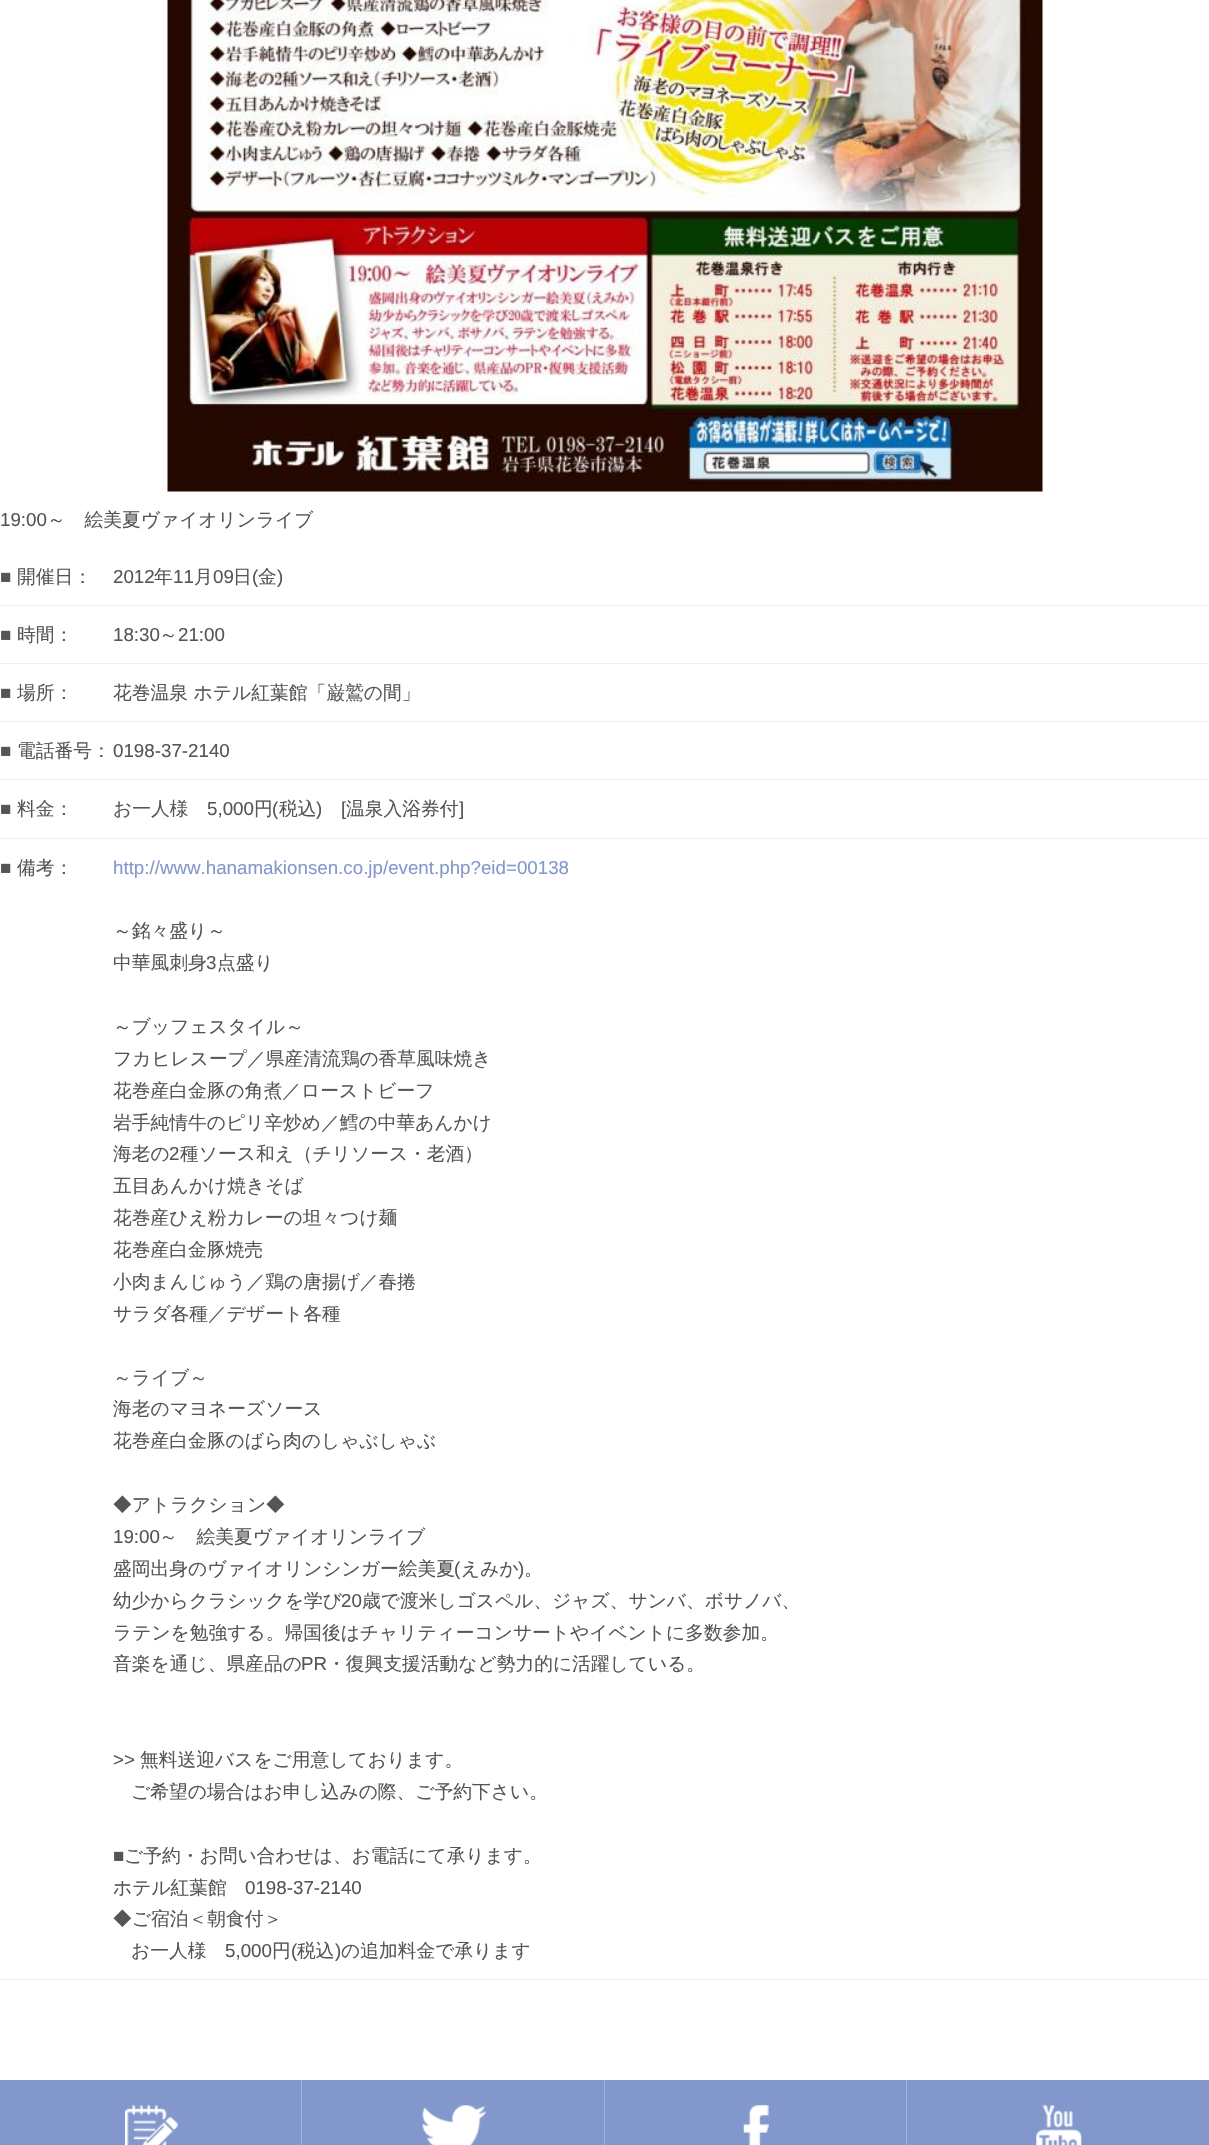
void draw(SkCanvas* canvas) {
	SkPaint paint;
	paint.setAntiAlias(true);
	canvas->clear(0xffffffff);
	canvas->drawImageRect(SkImages::DeferredFromEncodedData(SkData::MakeFromFileName("img1.png")), SkRect::MakeXYWH(167, 0, 876, 492), SkSamplingOptions());
	SkFont f1(fontMgr->matchFamilyStyle("Liberation Sans", SkFontStyle::Normal()), 18.75);
	f1.setSubpixel(true);
	paint.setColor(0xff555555);
	canvas->drawString("19:00", 0, 526, f1, paint);
	SkFont f2(fontMgr->matchFamilyStyle("WenQuanYi Zen Hei", SkFontStyle(500, SkFontStyle::kNormal_Width, SkFontStyle::kUpright_Slant)), 18.75);
	f2.setSubpixel(true);
	canvas->drawString("～　絵美夏ヴァイオリンライブ", 47, 526, f2, paint);
	canvas->drawString("■", 0, 583, f1, paint);
	canvas->drawString("開催日：", 17, 583, f2, paint);
	paint.setColor(0xfff2eeea);
	canvas->drawRect(SkRect::MakeXYWH(0, 605, 1209, 1), paint);
	paint.setColor(0xff555555);
	canvas->drawString("2012", 113, 583, f1, paint);
	canvas->drawString("年", 154, 583, f2, paint);
	canvas->drawString("11", 173, 583, f1, paint);
	canvas->drawString("月", 194, 583, f2, paint);
	canvas->drawString("09", 213, 583, f1, paint);
	canvas->drawString("日", 233, 583, f2, paint);
	canvas->drawString("(", 252, 583, f1, paint);
	canvas->drawString("金", 258, 583, f2, paint);
	canvas->drawString(")", 277, 583, f1, paint);
	canvas->drawString("■", 0, 641, f1, paint);
	canvas->drawString("時間：", 17, 641, f2, paint);
	paint.setColor(0xfff2eeea);
	canvas->drawRect(SkRect::MakeXYWH(0, 663, 1209, 1), paint);
	paint.setColor(0xff555555);
	canvas->drawString("18:30", 113, 641, f1, paint);
	canvas->drawString("～", 159, 641, f2, paint);
	canvas->drawString("21:00", 178, 641, f1, paint);
	canvas->drawString("■", 0, 699, f1, paint);
	canvas->drawString("場所：", 17, 699, f2, paint);
	paint.setColor(0xfff2eeea);
	canvas->drawRect(SkRect::MakeXYWH(0, 721, 1209, 1), paint);
	paint.setColor(0xff555555);
	canvas->drawString("花巻温泉 ホテル紅葉館「巌鷲の間」", 113, 699, f2, paint);
	canvas->drawString("■", 0, 757, f1, paint);
	canvas->drawString("電話番号：", 17, 757, f2, paint);
	paint.setColor(0xfff2eeea);
	canvas->drawRect(SkRect::MakeXYWH(0, 779, 1209, 1), paint);
	paint.setColor(0xff555555);
	canvas->drawString("0198-37-2140", 113, 757, f1, paint);
	canvas->drawString("■", 0, 815, f1, paint);
	canvas->drawString("料金：", 17, 815, f2, paint);
	paint.setColor(0xfff2eeea);
	canvas->drawRect(SkRect::MakeXYWH(0, 838, 1209, 1), paint);
	paint.setColor(0xff555555);
	canvas->drawString("お一人様", 113, 815, f2, paint);
	canvas->drawString("5,000", 207, 815, f1, paint);
	canvas->drawString("円", 254, 815, f2, paint);
	canvas->drawString("(", 272, 815, f1, paint);
	canvas->drawString("税込", 279, 815, f2, paint);
	canvas->drawString(")", 316, 815, f1, paint);
	canvas->drawString("[", 341, 815, f1, paint);
	canvas->drawString("温泉入浴券付", 346, 815, f2, paint);
	canvas->drawString("]", 459, 815, f1, paint);
	canvas->drawString("■", 0, 874, f1, paint);
	canvas->drawString("備考：", 17, 874, f2, paint);
	paint.setColor(0xfff2eeea);
	canvas->drawRect(SkRect::MakeXYWH(0, 1979, 1209, 1), paint);
	paint.setColor(0xff8298cc);
	canvas->drawString("http://www.hanamakionsen.co.jp/event.php?eid=00138", 113, 874, f1, paint);
	paint.setColor(0xff555555);
	canvas->drawString("～銘々盛り～", 113, 937, f2, paint);
	canvas->drawString("中華風刺身", 113, 969, f2, paint);
	canvas->drawString("3", 206, 969, f1, paint);
	canvas->drawString("点盛り", 217, 969, f2, paint);
	canvas->drawString("～ブッフェスタイル～", 113, 1033, f2, paint);
	canvas->drawString("フカヒレスープ／県産清流鶏の香草風味焼き", 113, 1065, f2, paint);
	canvas->drawString("花巻産白金豚の角煮／ローストビーフ", 113, 1097, f2, paint);
	canvas->drawString("岩手純情牛のピリ辛炒め／鱈の中華あんかけ", 113, 1129, f2, paint);
	canvas->drawString("海老の", 113, 1160, f2, paint);
	canvas->drawString("2", 169, 1160, f1, paint);
	canvas->drawString("種ソース和え（チリソース・老酒）", 180, 1160, f2, paint);
	canvas->drawString("五目あんかけ焼きそば", 113, 1192, f2, paint);
	canvas->drawString("花巻産ひえ粉カレーの坦々つけ麺", 113, 1224, f2, paint);
	canvas->drawString("花巻産白金豚焼売", 113, 1256, f2, paint);
	canvas->drawString("小肉まんじゅう／鶏の唐揚げ／春捲", 113, 1288, f2, paint);
	canvas->drawString("サラダ各種／デザート各種", 113, 1320, f2, paint);
	canvas->drawString("～ライブ～", 113, 1384, f2, paint);
	canvas->drawString("海老のマヨネーズソース", 113, 1415, f2, paint);
	canvas->drawString("花巻産白金豚のばら肉のしゃぶしゃぶ", 113, 1447, f2, paint);
	canvas->drawString("◆アトラクション◆", 113, 1511, f2, paint);
	canvas->drawString("19:00", 113, 1543, f1, paint);
	canvas->drawString("～　絵美夏ヴァイオリンライブ", 159, 1543, f2, paint);
	canvas->drawString("盛岡出身のヴァイオリンシンガー絵美夏", 113, 1575, f2, paint);
	canvas->drawString("(", 454, 1575, f1, paint);
	canvas->drawString("えみか", 461, 1575, f2, paint);
	canvas->drawString(")", 518, 1575, f1, paint);
	canvas->drawString("。", 524, 1575, f2, paint);
	canvas->drawString("幼少からクラシックを学び", 113, 1607, f2, paint);
	canvas->drawString("20", 341, 1607, f1, paint);
	canvas->drawString("歳で渡米しゴスペル、ジャズ、サンバ、ボサノバ、", 362, 1607, f2, paint);
	canvas->drawString("ラテンを勉強する。帰国後はチャリティーコンサートやイベントに多数参加。", 113, 1639, f2, paint);
	canvas->drawString("音楽を通じ、県産品の", 113, 1670, f2, paint);
	canvas->drawString("PR", 301, 1670, f1, paint);
	canvas->drawString("・復興支援活動など勢力的に活躍している。", 327, 1670, f2, paint);
	canvas->drawString(">>", 113, 1766, f1, paint);
	canvas->drawString("無料送迎バスをご用意しております。", 140, 1766, f2, paint);
	canvas->drawString("ご希望の場合はお申し込みの際、ご予約下さい。", 131, 1798, f2, paint);
	canvas->drawString("■", 113, 1862, f1, paint);
	canvas->drawString("ご予約・お問い合わせは、お電話にて承ります。", 124, 1862, f2, paint);
	canvas->drawString("ホテル紅葉館", 113, 1894, f2, paint);
	canvas->drawString("0198-37-2140", 245, 1894, f1, paint);
	canvas->drawString("◆ご宿泊＜朝食付＞", 113, 1925, f2, paint);
	canvas->drawString("お一人様", 131, 1957, f2, paint);
	canvas->drawString("5,000", 225, 1957, f1, paint);
	canvas->drawString("円", 272, 1957, f2, paint);
	canvas->drawString("(", 291, 1957, f1, paint);
	canvas->drawString("税込", 297, 1957, f2, paint);
	canvas->drawString(")", 335, 1957, f1, paint);
	canvas->drawString("の追加料金で承ります", 341, 1957, f2, paint);
	paint.setColor(0xff8298cc);
	canvas->drawRect(SkRect::MakeXYWH(0, 2080, 1209, 65), paint);
	paint.setColor(0xff9ab4f0);
	canvas->drawRect(SkRect::MakeXYWH(301, 2080, 1, 65), paint);
	canvas->drawImageRect(SkImages::DeferredFromEncodedData(SkData::MakeFromFileName("img2.png")), SkRect::MakeXYWH(125, 2105, 53, 40), SkSamplingOptions());
	canvas->drawRect(SkRect::MakeXYWH(604, 2080, 1, 65), paint);
	canvas->drawImageRect(SkImages::DeferredFromEncodedData(SkData::MakeFromFileName("img3.png")), SkRect::MakeXYWH(422, 2105, 65, 40), SkSamplingOptions());
	canvas->drawRect(SkRect::MakeXYWH(906, 2080, 1, 65), paint);
	canvas->drawImageRect(SkImages::DeferredFromEncodedData(SkData::MakeFromFileName("img4.png")), SkRect::MakeXYWH(743, 2105, 26, 40), SkSamplingOptions());
	canvas->drawImageRect(SkImages::DeferredFromEncodedData(SkData::MakeFromFileName("img5.png")), SkRect::MakeXYWH(1036, 2105, 46, 40), SkSamplingOptions());
}
